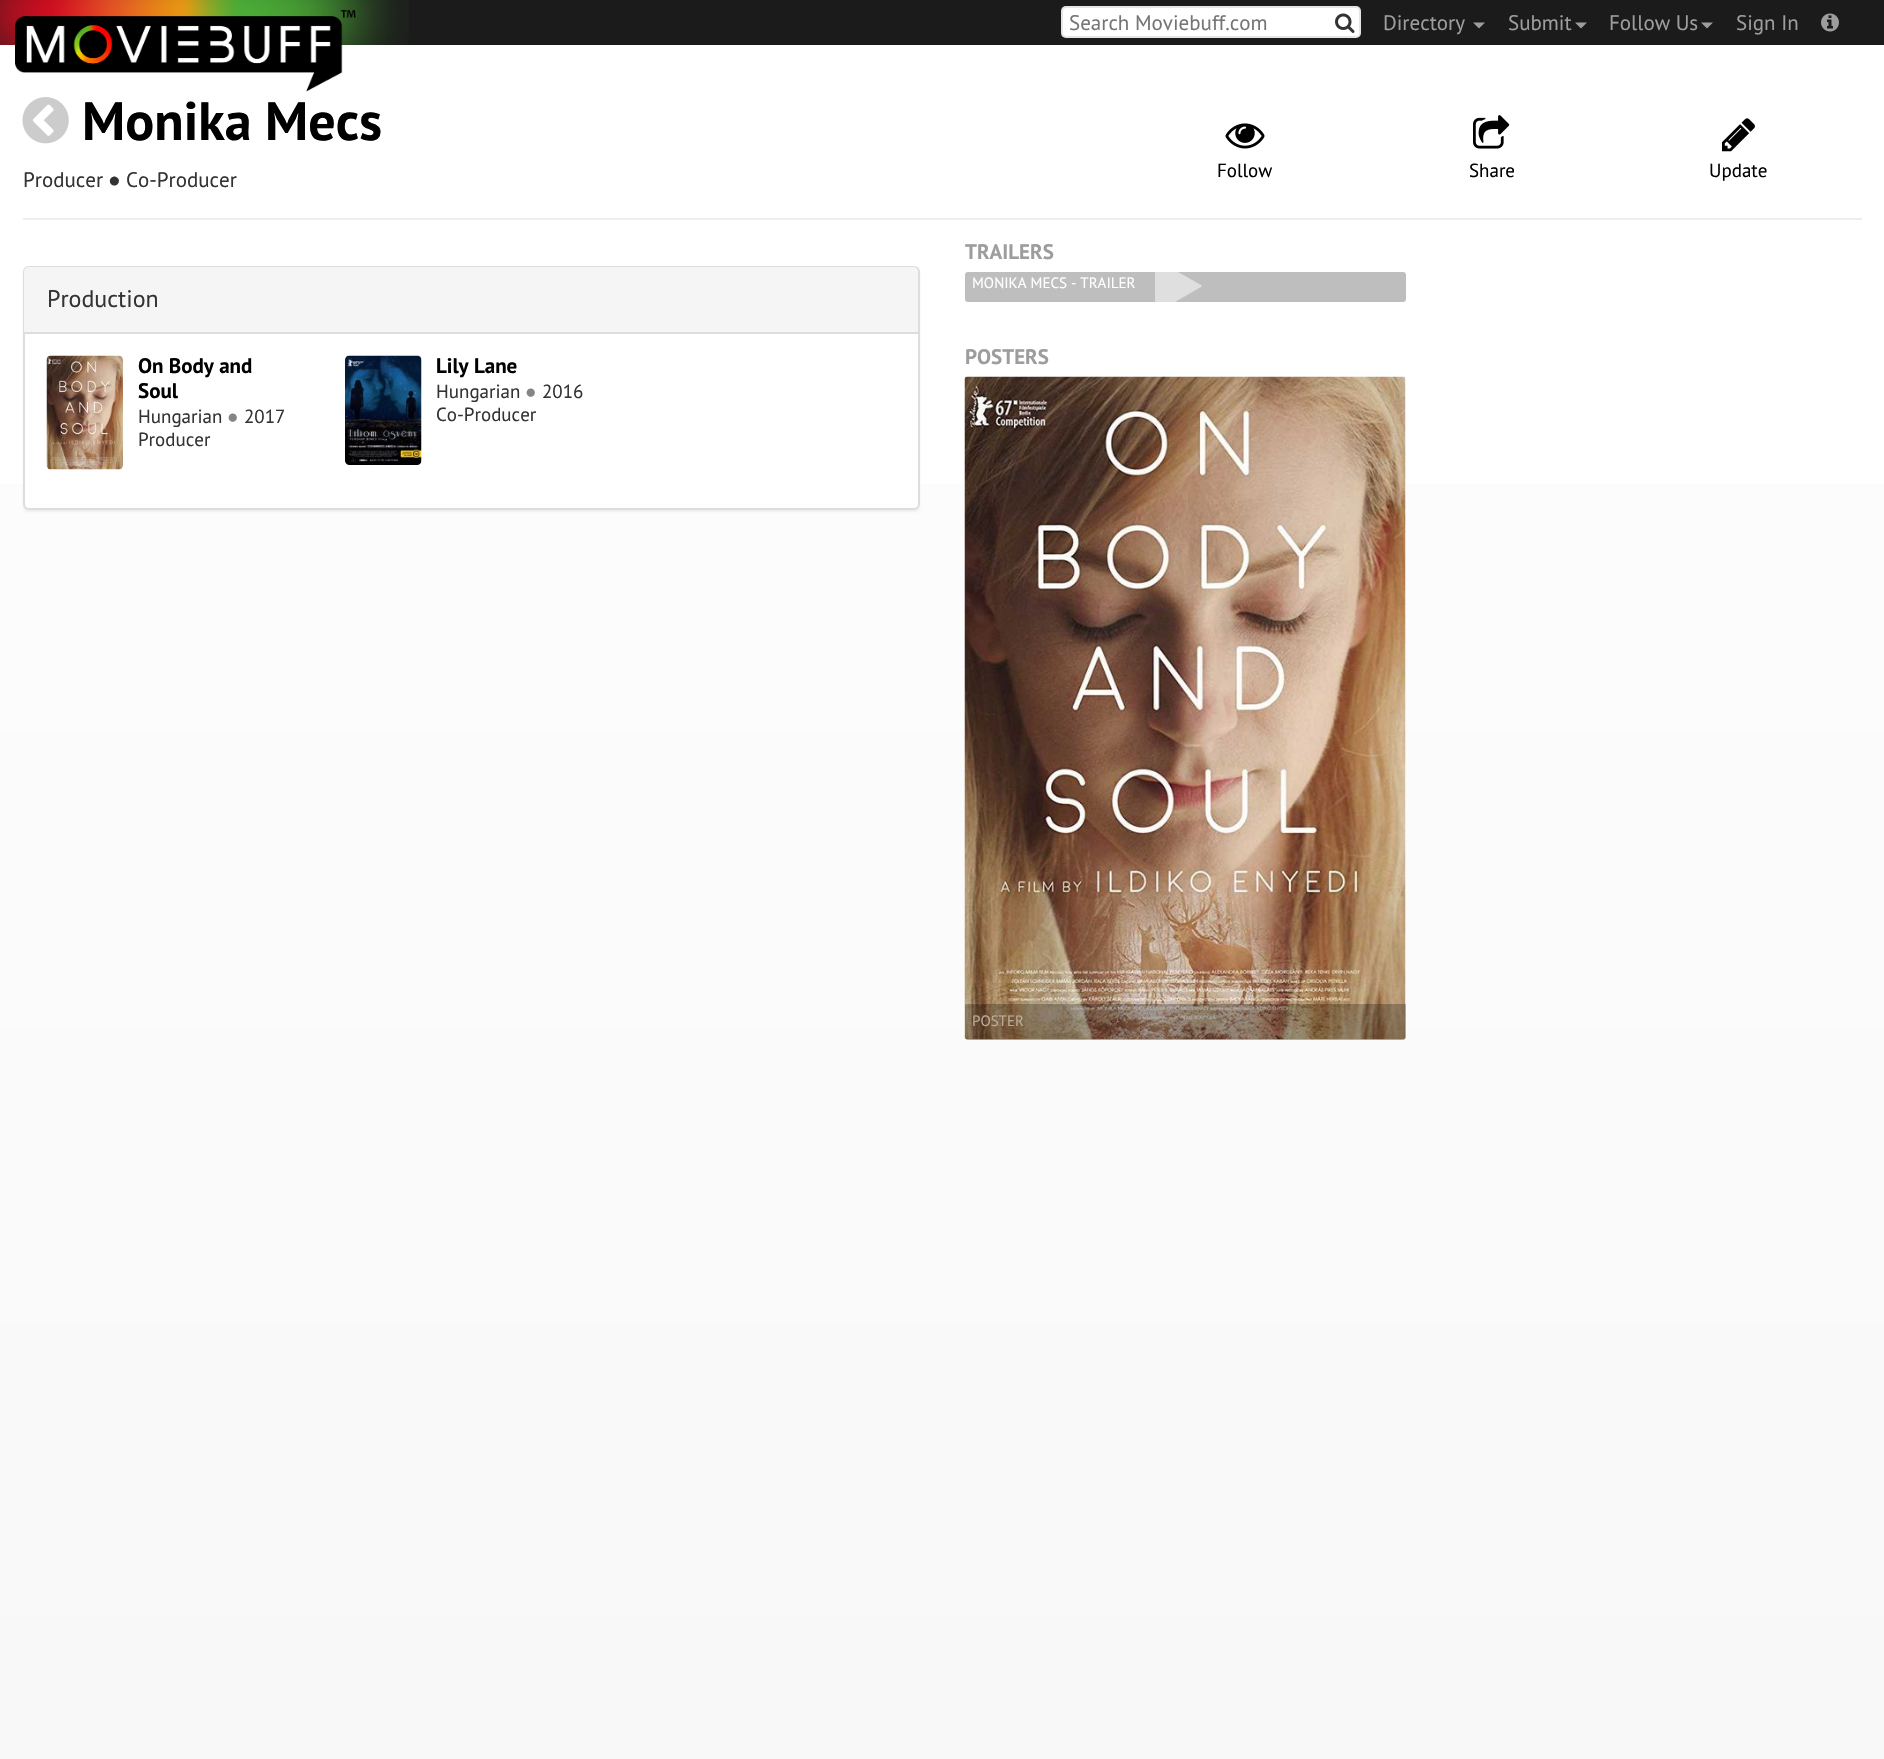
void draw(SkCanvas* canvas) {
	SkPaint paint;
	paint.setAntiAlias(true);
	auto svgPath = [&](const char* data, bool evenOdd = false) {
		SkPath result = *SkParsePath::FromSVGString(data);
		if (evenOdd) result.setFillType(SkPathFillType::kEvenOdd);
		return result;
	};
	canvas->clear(0xffffffff);
	{
		const SkColor colors[] = {0xffffffff, 0xfffcfcfc, 0xfffafafa, 0xfff8f8f8};
		const float stops[] = {0, 0.33, 0.67, 1};
		const SkPoint ends[] = {{942, 0}, {942, 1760}};
		paint.setShader(SkGradientShader::MakeLinear(ends, colors, stops, 4, SkTileMode::kClamp));
		paint.setAlpha(255);
	}
	canvas->drawRect(SkRect::MakeXYWH(0, 484, 1884, 1275), paint);
	paint.setShader(nullptr);
	paint.setColor(0xff1b1b1b);
	canvas->drawRect(SkRect::MakeXYWH(0, 0, 1884, 45), paint);
	canvas->drawImageRect(SkImages::DeferredFromEncodedData(SkData::MakeFromFileName("img1.png")), SkRect::MakeXYWH(0, 0, 409, 45), SkSamplingOptions());
	canvas->drawImageRect(SkImages::DeferredFromEncodedData(SkData::MakeFromFileName("img2.png")), SkRect::MakeXYWH(15, 10, 341, 82), SkSamplingOptions());
	paint.setColor(0xffffffff);
	canvas->drawRoundRect(SkRect::MakeXYWH(1061, 6, 300, 32), 5, 5, paint);
	paint.setStroke(true);
	paint.setStrokeWidth(2);
	paint.setColor(0x1a000000);
	canvas->drawRoundRect(SkRect::MakeXYWH(1062, 7, 298, 30), 4, 4, paint);
	SkFont f1(fontMgr->matchFamilyStyle("PT Sans", SkFontStyle::Normal()), 21);
	f1.setSubpixel(true);
	paint.setStroke(false);
	paint.setColor(0xff757575);
	canvas->drawString("Search Moviebuff.com", 1069, 30, f1, paint);
	canvas->drawImageRect(SkImages::DeferredFromEncodedData(SkData::MakeFromFileName("img3.png")), SkRect::MakeXYWH(1335, 13, 20, 20), SkSamplingOptions());
	paint.setColor(0xff9d9d9d);
	canvas->drawString("Directory", 1383, 30, f1, paint);
	canvas->drawPath(svgPath("M1473 22.5H1485L1479 28.5Z"), paint);
	canvas->drawString("Submit", 1508, 30, f1, paint);
	canvas->drawPath(svgPath("M1575 22.5H1587L1581 28.5Z"), paint);
	canvas->drawString("Follow Us", 1609, 30, f1, paint);
	canvas->drawPath(svgPath("M1701 22.5H1713L1707 28.5Z"), paint);
	canvas->drawString("Sign In", 1736, 30, f1, paint);
	canvas->drawImageRect(SkImages::DeferredFromEncodedData(SkData::MakeFromFileName("img4.png")), SkRect::MakeXYWH(1821, 13, 18, 19), SkSamplingOptions());
	canvas->drawImageRect(SkImages::DeferredFromEncodedData(SkData::MakeFromFileName("img5.png")), SkRect::MakeXYWH(22, 97, 47, 47), SkSamplingOptions());
	SkFont f2(fontMgr->matchFamilyStyle("PT Sans", SkFontStyle::Bold()), 54);
	f2.setSubpixel(true);
	paint.setColor(0xff000000);
	canvas->drawString("Monika Mecs", 82, 140, f2, paint);
	paint.setColor(0xff333333);
	canvas->drawString("Producer", 23, 187, f1, paint);
	SkFont f3(fontMgr->matchFamilyStyle("Liberation Serif", SkFontStyle::Normal()), 21);
	f3.setSubpixel(true);
	canvas->drawString("●", 108, 187, f3, paint);
	canvas->drawString("Co-Producer", 126, 187, f1, paint);
	canvas->drawImageRect(SkImages::DeferredFromEncodedData(SkData::MakeFromFileName("img6.png")), SkRect::MakeXYWH(1225, 123, 40, 26), SkSamplingOptions());
	SkFont f4(fontMgr->matchFamilyStyle("PT Sans", SkFontStyle::Normal()), 19);
	f4.setSubpixel(true);
	paint.setColor(0xff000000);
	canvas->drawString("Follow", 1217, 177, f4, paint);
	canvas->drawImageRect(SkImages::DeferredFromEncodedData(SkData::MakeFromFileName("img7.png")), SkRect::MakeXYWH(1473, 115, 37, 34), SkSamplingOptions());
	canvas->drawString("Share", 1469, 177, f4, paint);
	canvas->drawImageRect(SkImages::DeferredFromEncodedData(SkData::MakeFromFileName("img8.png")), SkRect::MakeXYWH(1722, 118, 33, 34), SkSamplingOptions());
	canvas->drawString("Update", 1709, 177, f4, paint);
	paint.setColor(0xffeeeeee);
	canvas->drawRect(SkRect::MakeXYWH(23, 218, 1839, 2), paint);
	paint.setColor(0x0d000000);
	paint.setMaskFilter(SkMaskFilter::MakeBlur(kNormal_SkBlurStyle, 1));
	canvas->drawRoundRect(SkRect::MakeXYWH(23, 267, 897, 245), 6, 6, paint);
	paint.setMaskFilter(nullptr);
	paint.setColor(0xffffffff);
	canvas->drawRoundRect(SkRect::MakeXYWH(24, 267, 895, 242), 5, 5, paint);
	paint.setStroke(true);
	paint.setColor(0xffdddddd);
	canvas->drawRoundRect(SkRect::MakeXYWH(24, 267, 895, 242), 5, 5, paint);
	paint.setStroke(false);
	paint.setColor(0xfff5f5f5);
	canvas->drawPath(svgPath("M29 267H913C916 267 918 269 918 272V333H24V272C24 269 26 267 29 267Z"), paint);
	paint.setColor(0xffdddddd);
	canvas->drawRect(SkRect::MakeXYWH(24, 332, 894, 2), paint);
	SkFont f5(fontMgr->matchFamilyStyle("PT Sans", SkFontStyle::Normal()), 24);
	f5.setSubpixel(true);
	paint.setColor(0xff333333);
	canvas->drawString("Production", 47, 307, f5, paint);
	canvas->drawImageRect(SkImages::DeferredFromEncodedData(SkData::MakeFromFileName("img9.png")), SkRect::MakeXYWH(46, 355, 77, 115), SkSamplingOptions());
	SkFont f6(fontMgr->matchFamilyStyle("PT Sans", SkFontStyle::Bold()), 21);
	f6.setSubpixel(true);
	paint.setColor(0xff000000);
	canvas->drawString("On Body and", 138, 373, f6, paint);
	canvas->drawString("Soul", 138, 398, f6, paint);
	paint.setColor(0xff333333);
	canvas->drawString("Hungarian", 138, 423, f4, paint);
	SkFont f7(fontMgr->matchFamilyStyle("Liberation Serif", SkFontStyle::Normal()), 19);
	f7.setSubpixel(true);
	paint.setColor(0xff858585);
	canvas->drawString("●", 227, 423, f7, paint);
	paint.setColor(0xff333333);
	canvas->drawString("2017", 244, 423, f4, paint);
	canvas->drawString("Producer", 138, 446, f4, paint);
	canvas->drawImageRect(SkImages::DeferredFromEncodedData(SkData::MakeFromFileName("img10.png")), SkRect::MakeXYWH(345, 355, 77, 110), SkSamplingOptions());
	paint.setColor(0xff000000);
	canvas->drawString("Lily Lane", 436, 373, f6, paint);
	paint.setColor(0xff333333);
	canvas->drawString("Hungarian", 436, 398, f4, paint);
	paint.setColor(0xff858585);
	canvas->drawString("●", 525, 398, f7, paint);
	paint.setColor(0xff333333);
	canvas->drawString("2016", 542, 398, f4, paint);
	canvas->drawString("Co-Producer", 436, 421, f4, paint);
	paint.setColor(0xff9d9d9d);
	canvas->drawString("TRAILERS", 965, 259, f6, paint);
	paint.setColor(0xffbebebe);
	canvas->drawRoundRect(SkRect::MakeXYWH(965, 272, 441, 30), 3, 3, paint);
	SkFont f8(fontMgr->matchFamilyStyle("PT Sans", SkFontStyle::Normal()), 15);
	f8.setSubpixel(true);
	paint.setColor(0xffffffff);
	canvas->drawString("MONIKA MECS - TRAILER", 972, 288, f8, paint);
	paint.setColor(0xffdfdfdf);
	canvas->drawPath(svgPath("M1201 287L1175 302H1155V272H1178L1201 285C1202 286 1202 287 1201 287Z"), paint);
	paint.setColor(0xff9d9d9d);
	canvas->drawString("POSTERS", 965, 364, f6, paint);
	canvas->drawImageRect(SkImages::DeferredFromEncodedData(SkData::MakeFromFileName("img11.png")), SkRect::MakeXYWH(964, 376, 442, 664), SkSamplingOptions());
	paint.setColor(0x40000000);
	canvas->drawPath(svgPath("M965 1004H1406V1037C1406 1038.5 1404.5 1040 1403 1040H968C966.5 1040 965 1038.5 965 1037Z"), paint);
	paint.setColor(0xffb9ab9d);
	canvas->drawString("POSTER", 972, 1026, f8, paint);
}
